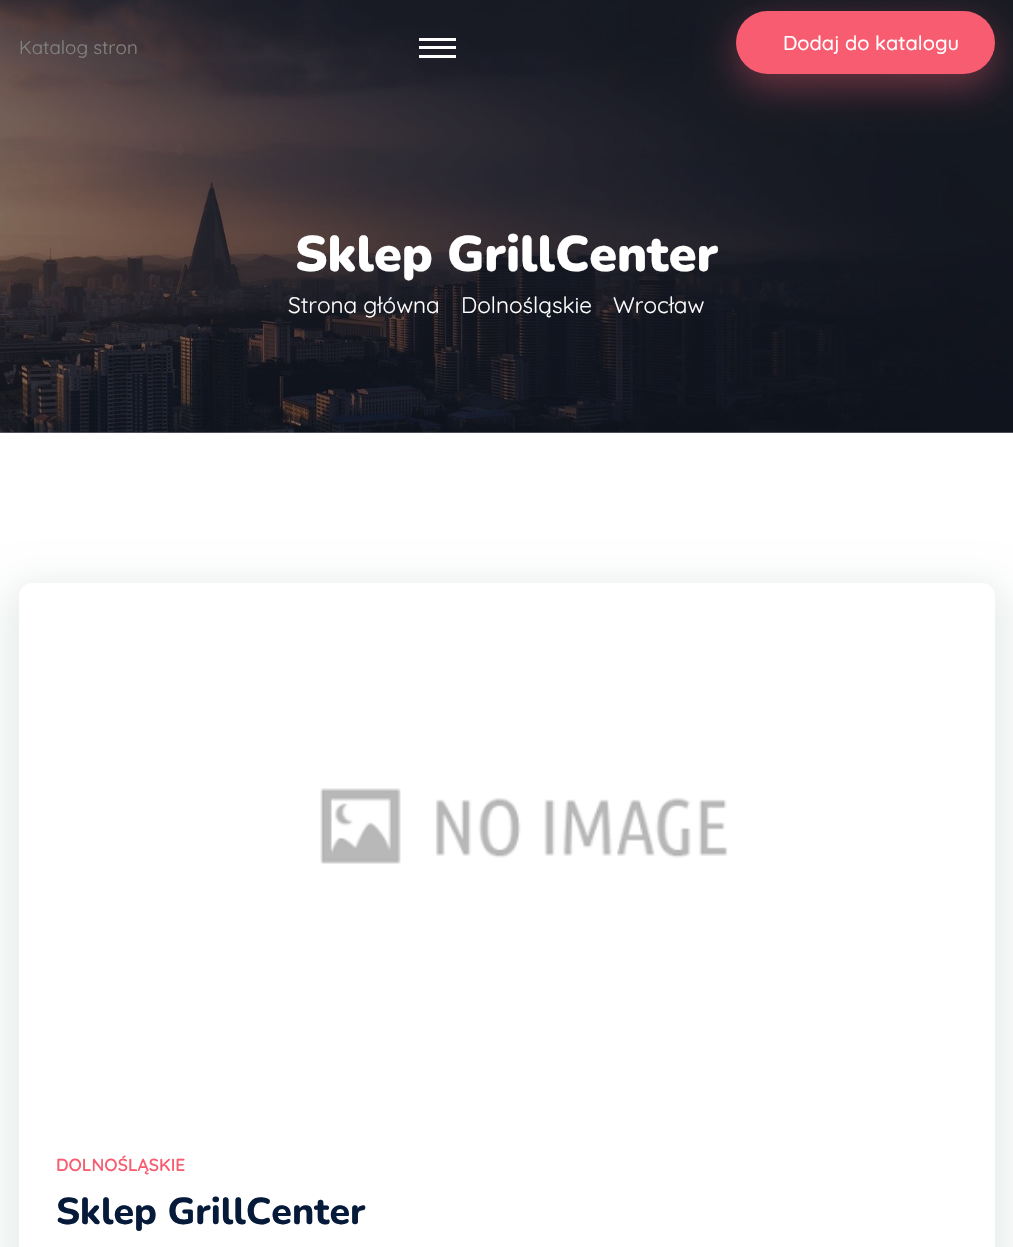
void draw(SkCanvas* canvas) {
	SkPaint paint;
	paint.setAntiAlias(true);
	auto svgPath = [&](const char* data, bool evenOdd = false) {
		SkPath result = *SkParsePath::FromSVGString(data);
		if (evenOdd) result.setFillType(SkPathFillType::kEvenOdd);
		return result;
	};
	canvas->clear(0xffffffff);
	paint.setColor(0xff868b96);
	canvas->drawRect(SkRect::MakeXYWH(0, 432, 1013, 1), paint);
	canvas->drawImageRect(SkImages::DeferredFromEncodedData(SkData::MakeFromFileName("img1.png")), SkRect::MakeXYWH(0, 0, 1013, 433), SkSamplingOptions());
	SkFont f1(fontMgr->matchFamilyStyle("Quicksand", SkFontStyle::Normal()), 18.75);
	f1.setSubpixel(true);
	paint.setColor(0xff848484);
	canvas->drawString("Katalog stron", 19, 54, f1, paint);
	paint.setColor(0xffffffff);
	canvas->drawRect(SkRect::MakeXYWH(419, 38, 37, 3), paint);
	canvas->drawRect(SkRect::MakeXYWH(419, 46, 37, 3), paint);
	canvas->drawRect(SkRect::MakeXYWH(419, 55, 37, 3), paint);
	paint.setColor(0x66f85c70);
	paint.setMaskFilter(SkMaskFilter::MakeBlur(kNormal_SkBlurStyle, 19));
	canvas->drawRoundRect(SkRect::MakeXYWH(736, 24, 259, 62), 31, 31, paint);
	paint.setMaskFilter(nullptr);
	paint.setColor(0xfff85c70);
	canvas->drawRoundRect(SkRect::MakeXYWH(736, 11, 259, 63), 31.5, 31.5, paint);
	SkFont f2(fontMgr->matchFamilyStyle("Quicksand", SkFontStyle(500, SkFontStyle::kNormal_Width, SkFontStyle::kUpright_Slant)), 20);
	f2.setSubpixel(true);
	paint.setColor(0xffffffff);
	canvas->drawString("Dodaj do katalogu", 783, 50, f2, paint);
	SkFont f3(fontMgr->matchFamilyStyle("Nunito", SkFontStyle(900, SkFontStyle::kNormal_Width, SkFontStyle::kUpright_Slant)), 50);
	f3.setSubpixel(true);
	canvas->drawString("Sklep GrillCenter", 295, 271, f3, paint);
	SkFont f4(fontMgr->matchFamilyStyle("Quicksand", SkFontStyle::Normal()), 22.5);
	f4.setSubpixel(true);
	canvas->drawString("Strona główna", 288, 313, f4, paint);
	canvas->drawString("Dolnośląskie", 461, 313, f4, paint);
	canvas->drawString("Wrocław", 613, 313, f4, paint);
	canvas->save();
	canvas->clipPath(svgPath("M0 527H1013V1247H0ZM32 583H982C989 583 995 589 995 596V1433C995 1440 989 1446 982 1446H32C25 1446 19 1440 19 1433V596C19 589 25 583 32 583Z", true), true);
	paint.setColor(0xffe5ebea);
	paint.setMaskFilter(SkMaskFilter::MakeBlur(kNormal_SkBlurStyle, 19));
	canvas->drawRoundRect(SkRect::MakeXYWH(9, 585, 996, 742), 23, 23, paint);
	paint.setMaskFilter(nullptr);
	canvas->restore();
	canvas->drawImageRect(SkImages::DeferredFromEncodedData(SkData::MakeFromFileName("img2.png")), SkRect::MakeXYWH(320, 788, 408, 76), SkSamplingOptions());
	SkFont f5(fontMgr->matchFamilyStyle("Quicksand", SkFontStyle(600, SkFontStyle::kNormal_Width, SkFontStyle::kUpright_Slant)), 17.5);
	f5.setSubpixel(true);
	paint.setColor(0xfff85c70);
	canvas->drawString("DOLNOŚLĄSKIE", 56, 1171, f5, paint);
	SkFont f6(fontMgr->matchFamilyStyle("Nunito", SkFontStyle(800, SkFontStyle::kNormal_Width, SkFontStyle::kUpright_Slant)), 37.5);
	f6.setSubpixel(true);
	paint.setColor(0xff061a3a);
	canvas->drawString("Sklep GrillCenter", 56, 1224, f6, paint);
}
